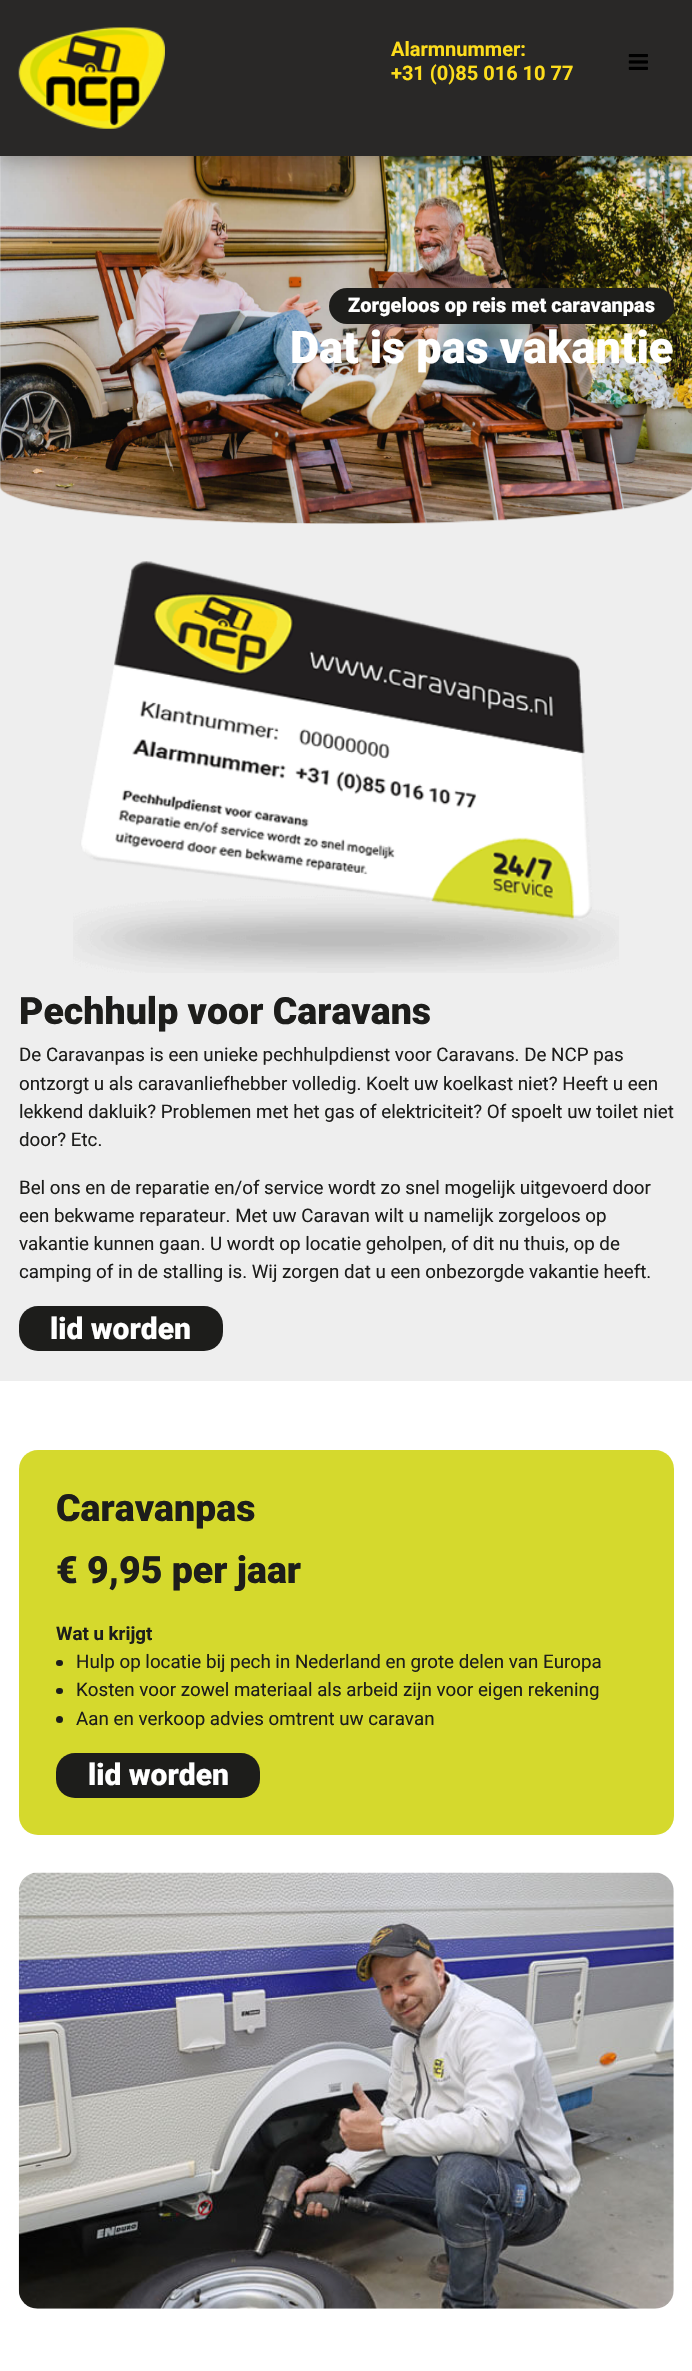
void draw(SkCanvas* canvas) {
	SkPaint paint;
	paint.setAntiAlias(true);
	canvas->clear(0xffffffff);
	paint.setColor(0xffeeeeee);
	canvas->drawRect(SkRect::MakeXYWH(0, 156, 692, 1225), paint);
	canvas->drawImageRect(SkImages::DeferredFromEncodedData(SkData::MakeFromFileName("img3.png")), SkRect::MakeXYWH(0, 156, 692, 368), SkSamplingOptions());
	paint.setColor(0x52000000);
	paint.setMaskFilter(SkMaskFilter::MakeBlur(kNormal_SkBlurStyle, 11));
	canvas->drawRect(SkRect::MakeXYWH(-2, -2, 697, 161), paint);
	paint.setMaskFilter(nullptr);
	paint.setColor(0xff292827);
	canvas->drawRect(SkRect::MakeXYWH(0, 0, 692, 156), paint);
	canvas->drawImageRect(SkImages::DeferredFromEncodedData(SkData::MakeFromFileName("img1.png")), SkRect::MakeXYWH(18, 27, 147, 102), SkSamplingOptions());
	SkFont f1(fontMgr->matchFamilyStyle("Roboto", SkFontStyle::Bold()), 20);
	f1.setSubpixel(true);
	paint.setColor(0xfffcdc1c);
	canvas->drawString("Alarmnummer:", 391, 56, f1, paint);
	canvas->drawString("+31 (0)85 016 10 77", 391, 80, f1, paint);
	canvas->drawImageRect(SkImages::DeferredFromEncodedData(SkData::MakeFromFileName("img2.png")), SkRect::MakeXYWH(628, 54, 20, 16), SkSamplingOptions());
	paint.setColor(0xff1d1d1b);
	canvas->drawRoundRect(SkRect::MakeXYWH(329, 288, 345, 36), 18, 18, paint);
	SkFont f2(fontMgr->matchFamilyStyle("Roboto", SkFontStyle(900, SkFontStyle::kNormal_Width, SkFontStyle::kUpright_Slant)), 20);
	f2.setSubpixel(true);
	paint.setColor(0xffffffff);
	canvas->drawString("Zorgeloos op reis met caravanpas", 348, 312, f2, paint);
	SkFont f3(fontMgr->matchFamilyStyle("Roboto", SkFontStyle(900, SkFontStyle::kNormal_Width, SkFontStyle::kUpright_Slant)), 45);
	f3.setSubpixel(true);
	canvas->drawString("Dat is pas vakantie", 290, 363, f3, paint);
	canvas->drawImageRect(SkImages::DeferredFromEncodedData(SkData::MakeFromFileName("img4.png")), SkRect::MakeXYWH(73, 561, 546, 412), SkSamplingOptions());
	SkFont f4(fontMgr->matchFamilyStyle("Roboto", SkFontStyle(900, SkFontStyle::kNormal_Width, SkFontStyle::kUpright_Slant)), 37.5);
	f4.setSubpixel(true);
	paint.setColor(0xff1d1d1b);
	canvas->drawString("Pechhulp voor Caravans", 19, 1024, f4, paint);
	SkFont f5(fontMgr->matchFamilyStyle("Roboto", SkFontStyle::Normal()), 18.75);
	f5.setSubpixel(true);
	canvas->drawString("De Caravanpas is een unieke pechhulpdienst voor Caravans. De NCP pas", 19, 1061, f5, paint);
	canvas->drawString("ontzorgt u als caravanliefhebber volledig. Koelt uw koelkast niet? Heeft u een", 19, 1090, f5, paint);
	canvas->drawString("lekkend dakluik? Problemen met het gas of elektriciteit? Of spoelt uw toilet niet", 19, 1118, f5, paint);
	canvas->drawString("door? Etc.", 19, 1146, f5, paint);
	canvas->drawString("Bel ons en de reparatie en/of service wordt zo snel mogelijk uitgevoerd door", 19, 1194, f5, paint);
	canvas->drawString("een bekwame reparateur. Met uw Caravan wilt u namelijk zorgeloos op", 19, 1222, f5, paint);
	canvas->drawString("vakantie kunnen gaan. U wordt op locatie geholpen, of dit nu thuis, op de", 19, 1250, f5, paint);
	canvas->drawString("camping of in de stalling is. Wij zorgen dat u een onbezorgde vakantie heeft.", 19, 1278, f5, paint);
	canvas->drawRoundRect(SkRect::MakeXYWH(19, 1306, 204, 45), 19, 19, paint);
	SkFont f6(fontMgr->matchFamilyStyle("Roboto", SkFontStyle(900, SkFontStyle::kNormal_Width, SkFontStyle::kUpright_Slant)), 30);
	f6.setSubpixel(true);
	paint.setColor(0xffffffff);
	canvas->drawString("lid worden", 50, 1339, f6, paint);
	paint.setColor(0xffd5d92d);
	canvas->drawRoundRect(SkRect::MakeXYWH(19, 1450, 655, 385), 19, 19, paint);
	paint.setColor(0xff1d1d1b);
	canvas->drawString("Caravanpas", 56, 1521, f4, paint);
	canvas->drawString("€ 9,95 per jaar", 56, 1583, f4, paint);
	SkFont f7(fontMgr->matchFamilyStyle("Roboto", SkFontStyle::Bold()), 18.75);
	f7.setSubpixel(true);
	canvas->drawString("Wat u krijgt", 56, 1640, f7, paint);
	canvas->drawRoundRect(SkRect::MakeXYWH(56, 1660, 7, 6), 3, 3, paint);
	canvas->drawString("Hulp op locatie bij pech in Nederland en grote delen van Europa", 76, 1668, f5, paint);
	canvas->drawRoundRect(SkRect::MakeXYWH(56, 1688, 7, 6), 3, 3, paint);
	canvas->drawString("Kosten voor zowel materiaal als arbeid zijn voor eigen rekening", 76, 1696, f5, paint);
	canvas->drawCircle(59.5, 1719.5, 3.5, paint);
	canvas->drawString("Aan en verkoop advies omtrent uw caravan", 76, 1725, f5, paint);
	canvas->drawRoundRect(SkRect::MakeXYWH(56, 1753, 204, 45), 19, 19, paint);
	paint.setColor(0xffffffff);
	canvas->drawString("lid worden", 88, 1785, f6, paint);
	canvas->drawImageRect(SkImages::DeferredFromEncodedData(SkData::MakeFromFileName("img5.png")), SkRect::MakeXYWH(18, 1872, 656, 437), SkSamplingOptions());
}
